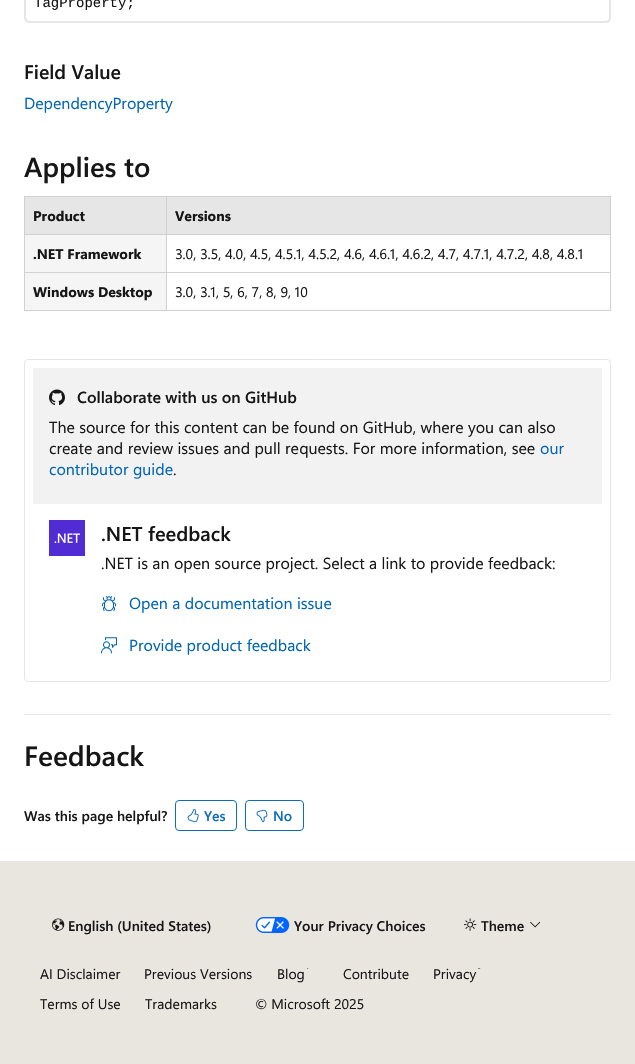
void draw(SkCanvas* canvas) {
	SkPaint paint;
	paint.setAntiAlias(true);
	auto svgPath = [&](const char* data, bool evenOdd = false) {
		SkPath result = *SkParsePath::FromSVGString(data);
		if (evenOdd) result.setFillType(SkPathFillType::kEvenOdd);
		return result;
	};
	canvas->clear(0xffffffff);
	paint.setStroke(true);
	paint.setStrokeWidth(2);
	paint.setColor(0xffe6e6e6);
	canvas->drawPath(svgPath("M25-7H610V17C610 20 608 22 605 22H30C27 22 25 20 25 17Z"), paint);
	SkFont f1(fontMgr->matchFamilyStyle("Liberation Mono", SkFontStyle::Normal()), 14);
	f1.setSubpixel(true);
	paint.setStroke(false);
	paint.setColor(0xff161616);
	canvas->drawString("TagProperty;", 34, 7, f1, paint);
	SkFont f2(fontMgr->matchFamilyStyle("Segoe UI", SkFontStyle(600, SkFontStyle::kNormal_Width, SkFontStyle::kUpright_Slant)), 19.5);
	f2.setSubpixel(true);
	canvas->drawString("Field Value", 24, 79, f2, paint);
	SkFont f3(fontMgr->matchFamilyStyle("Segoe UI", SkFontStyle::Normal()), 16);
	f3.setSubpixel(true);
	paint.setColor(0xff0065b3);
	canvas->drawString("DependencyProperty", 24, 109, f3, paint);
	SkFont f4(fontMgr->matchFamilyStyle("Segoe UI", SkFontStyle(600, SkFontStyle::kNormal_Width, SkFontStyle::kUpright_Slant)), 27.5);
	f4.setSubpixel(true);
	paint.setColor(0xff161616);
	canvas->drawString("Applies to", 24, 177, f4, paint);
	paint.setColor(0xffd1d1d1);
	canvas->drawRect(SkRect::MakeXYWH(24, 196, 587, 1), paint);
	canvas->drawRect(SkRect::MakeXYWH(610, 196, 1, 115), paint);
	canvas->drawRect(SkRect::MakeXYWH(24, 310, 587, 1), paint);
	canvas->drawRect(SkRect::MakeXYWH(24, 196, 1, 115), paint);
	paint.setColor(0xffe6e6e6);
	canvas->drawRect(SkRect::MakeXYWH(25, 197, 585, 37), paint);
	SkFont f5(fontMgr->matchFamilyStyle("Segoe UI", SkFontStyle::Bold()), 14);
	f5.setSubpixel(true);
	paint.setColor(0xff161616);
	canvas->drawString("Product", 33, 221, f5, paint);
	paint.setColor(0xffd1d1d1);
	canvas->drawRect(SkRect::MakeXYWH(166, 234, 445, 1), paint);
	canvas->drawRect(SkRect::MakeXYWH(166, 272, 445, 1), paint);
	canvas->drawRect(SkRect::MakeXYWH(166, 272, 1, 39), paint);
	canvas->drawRect(SkRect::MakeXYWH(24, 272, 143, 1), paint);
	canvas->drawRect(SkRect::MakeXYWH(166, 234, 1, 39), paint);
	canvas->drawRect(SkRect::MakeXYWH(24, 234, 143, 1), paint);
	canvas->drawRect(SkRect::MakeXYWH(166, 196, 1, 39), paint);
	paint.setColor(0xff161616);
	canvas->drawString("Versions", 175, 221, f5, paint);
	paint.setColor(0xfff5f5f5);
	canvas->drawRect(SkRect::MakeXYWH(25, 235, 141, 37), paint);
	paint.setColor(0xff161616);
	canvas->drawString(".NET Framework", 33, 259, f5, paint);
	SkFont f6(fontMgr->matchFamilyStyle("Segoe UI", SkFontStyle::Normal()), 14);
	f6.setSubpixel(true);
	canvas->drawString("3.0, 3.5, 4.0, 4.5, 4.5.1, 4.5.2, 4.6, 4.6.1, 4.6.2, 4.7, 4.7.1, 4.7.2, 4.8, 4.8.1", 175, 259, f6, paint);
	paint.setColor(0xfff5f5f5);
	canvas->drawRect(SkRect::MakeXYWH(25, 273, 141, 37), paint);
	paint.setColor(0xff161616);
	canvas->drawString("Windows Desktop", 33, 297, f5, paint);
	canvas->drawString("3.0, 3.1, 5, 6, 7, 8, 9, 10", 175, 297, f6, paint);
	paint.setStroke(true);
	paint.setStrokeWidth(1);
	paint.setColor(0xffe6e6e6);
	canvas->drawRoundRect(SkRect::MakeXYWH(24.5, 359.5, 586, 322), 3.5, 3.5, paint);
	paint.setStroke(false);
	paint.setColor(0xfff2f2f2);
	canvas->drawRect(SkRect::MakeXYWH(33, 368, 569, 136), paint);
	canvas->drawImageRect(SkImages::DeferredFromEncodedData(SkData::MakeFromFileName("img1.png")), SkRect::MakeXYWH(49, 389, 16, 17), SkSamplingOptions());
	SkFont f7(fontMgr->matchFamilyStyle("Segoe UI", SkFontStyle(600, SkFontStyle::kNormal_Width, SkFontStyle::kUpright_Slant)), 16);
	f7.setSubpixel(true);
	paint.setColor(0xff161616);
	canvas->drawString("Collaborate with us on GitHub", 77, 403, f7, paint);
	canvas->drawString("The source for this content can be found on GitHub, where you can also", 49, 433, f3, paint);
	canvas->drawString("create and review issues and pull requests. For more information, see", 49, 454, f3, paint);
	paint.setColor(0xff0065b3);
	canvas->drawString("our", 540, 454, f3, paint);
	canvas->drawString("contributor guide", 49, 475, f3, paint);
	paint.setColor(0xff161616);
	canvas->drawString(".", 173, 475, f3, paint);
	canvas->drawImageRect(SkImages::DeferredFromEncodedData(SkData::MakeFromFileName("img2.png")), SkRect::MakeXYWH(49, 520, 36, 36), SkSamplingOptions());
	SkFont f8(fontMgr->matchFamilyStyle("Segoe UI", SkFontStyle(600, SkFontStyle::kNormal_Width, SkFontStyle::kUpright_Slant)), 20);
	f8.setSubpixel(true);
	canvas->drawString(".NET feedback", 101, 541, f8, paint);
	canvas->drawString(".NET is an open source project. Select a link to provide feedback:", 101, 569, f3, paint);
	canvas->drawImageRect(SkImages::DeferredFromEncodedData(SkData::MakeFromFileName("img3.png")), SkRect::MakeXYWH(102, 596, 14, 16), SkSamplingOptions());
	paint.setColor(0xff0065b3);
	canvas->drawString("Open a documentation issue", 129, 609, f3, paint);
	canvas->drawImageRect(SkImages::DeferredFromEncodedData(SkData::MakeFromFileName("img4.png")), SkRect::MakeXYWH(101, 637, 16, 17), SkSamplingOptions());
	canvas->drawString("Provide product feedback", 129, 651, f3, paint);
	paint.setColor(0xffe6e6e6);
	canvas->drawRect(SkRect::MakeXYWH(24, 714, 587, 1), paint);
	SkFont f9(fontMgr->matchFamilyStyle("Segoe UI", SkFontStyle(600, SkFontStyle::kNormal_Width, SkFontStyle::kUpright_Slant)), 28);
	f9.setSubpixel(true);
	paint.setColor(0xff161616);
	canvas->drawString("Feedback", 24, 766, f9, paint);
	SkFont f10(fontMgr->matchFamilyStyle("Segoe UI", SkFontStyle(600, SkFontStyle::kNormal_Width, SkFontStyle::kUpright_Slant)), 14);
	f10.setSubpixel(true);
	canvas->drawString("Was this page helpful?", 24, 821, f10, paint);
	paint.setStroke(true);
	paint.setColor(0xff0f6cbd);
	canvas->drawRoundRect(SkRect::MakeXYWH(175.5, 800.5, 61, 30), 3.5, 3.5, paint);
	canvas->drawImageRect(SkImages::DeferredFromEncodedData(SkData::MakeFromFileName("img5.png")), SkRect::MakeXYWH(187, 809, 12, 14), SkSamplingOptions());
	paint.setStroke(false);
	canvas->drawString("Yes", 204, 821, f10, paint);
	paint.setStroke(true);
	canvas->drawRoundRect(SkRect::MakeXYWH(245.5, 800.5, 58, 30), 3.5, 3.5, paint);
	canvas->drawImageRect(SkImages::DeferredFromEncodedData(SkData::MakeFromFileName("img6.png")), SkRect::MakeXYWH(256, 809, 12, 14), SkSamplingOptions());
	paint.setStroke(false);
	canvas->drawString("No", 273, 821, f10, paint);
	paint.setColor(0xffe8e6df);
	canvas->drawRect(SkRect::MakeXYWH(0, 862, 635, 202), paint);
	paint.setColor(0xffe6e6e6);
	canvas->drawRect(SkRect::MakeXYWH(0, 861, 635, 1), paint);
	canvas->drawImageRect(SkImages::DeferredFromEncodedData(SkData::MakeFromFileName("img7.png")), SkRect::MakeXYWH(52, 918, 13, 13), SkSamplingOptions());
	paint.setColor(0xff161616);
	canvas->drawString("English (United States)", 68, 931, f10, paint);
	canvas->drawImageRect(SkImages::DeferredFromEncodedData(SkData::MakeFromFileName("img8.png")), SkRect::MakeXYWH(255, 917, 35, 16), SkSamplingOptions());
	canvas->drawString("Your Privacy Choices", 294, 931, f10, paint);
	canvas->drawImageRect(SkImages::DeferredFromEncodedData(SkData::MakeFromFileName("img9.png")), SkRect::MakeXYWH(464, 918, 13, 13), SkSamplingOptions());
	canvas->drawString("Theme", 481, 931, f10, paint);
	canvas->drawImageRect(SkImages::DeferredFromEncodedData(SkData::MakeFromFileName("img10.png")), SkRect::MakeXYWH(530, 921, 11, 7), SkSamplingOptions());
	canvas->drawString("AI Disclaimer", 40, 979, f6, paint);
	canvas->drawString("Previous Versions", 144, 979, f6, paint);
	canvas->drawString("Blog", 277, 979, f6, paint);
	canvas->drawImageRect(SkImages::DeferredFromEncodedData(SkData::MakeFromFileName("img11.png")), SkRect::MakeXYWH(307, 968, 2, 1), SkSamplingOptions());
	canvas->drawString("Contribute", 343, 979, f6, paint);
	canvas->drawString("Privacy", 433, 979, f6, paint);
	canvas->drawImageRect(SkImages::DeferredFromEncodedData(SkData::MakeFromFileName("img12.png")), SkRect::MakeXYWH(478, 968, 3, 1), SkSamplingOptions());
	canvas->drawString("Terms of Use", 40, 1009, f6, paint);
	canvas->drawString("Trademarks", 145, 1009, f6, paint);
	canvas->drawString("© Microsoft 2025", 255, 1009, f6, paint);
}
